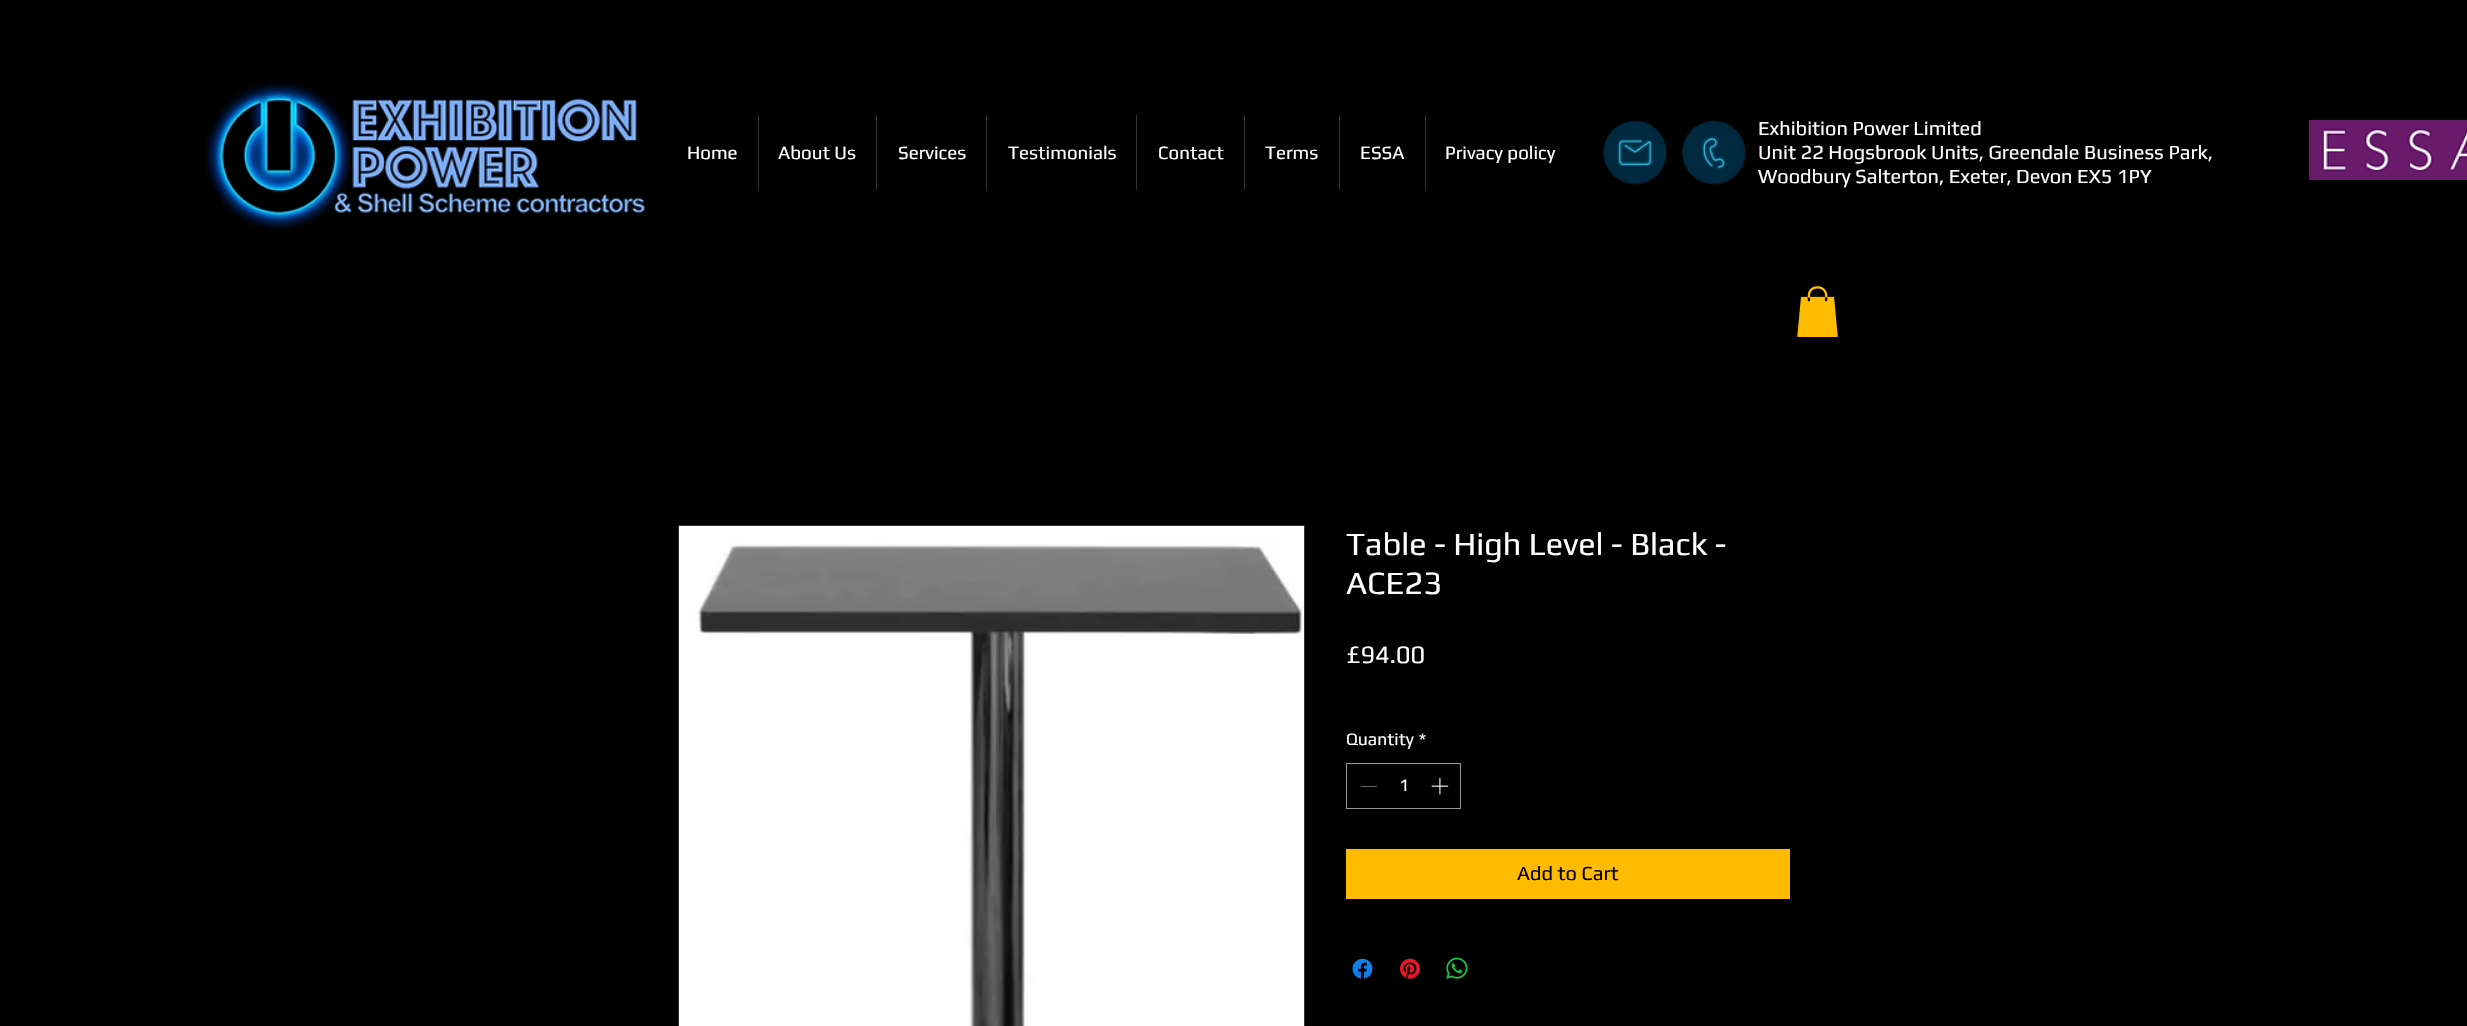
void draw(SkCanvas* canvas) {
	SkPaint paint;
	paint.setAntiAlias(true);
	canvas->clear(0xff000000);
	canvas->drawImageRect(SkImages::DeferredFromEncodedData(SkData::MakeFromFileName("img1.png")), SkRect::MakeXYWH(205, 82, 441, 148), SkSamplingOptions());
	SkFont f1(fontMgr->matchFamilyStyle("Play", SkFontStyle::Normal()), 18.75);
	f1.setSubpixel(true);
	paint.setColor(0xffffffff);
	canvas->drawString("Home", 687, 159, f1, paint);
	paint.setColor(0xff333333);
	canvas->drawRect(SkRect::MakeXYWH(758, 115, 1, 75), paint);
	paint.setColor(0xffffffff);
	canvas->drawString("About Us", 778, 159, f1, paint);
	paint.setColor(0xff333333);
	canvas->drawRect(SkRect::MakeXYWH(876, 115, 1, 75), paint);
	paint.setColor(0xffffffff);
	canvas->drawString("Services", 898, 159, f1, paint);
	paint.setColor(0xff333333);
	canvas->drawRect(SkRect::MakeXYWH(986, 115, 1, 75), paint);
	paint.setColor(0xffffffff);
	canvas->drawString("Testimonials", 1008, 159, f1, paint);
	paint.setColor(0xff333333);
	canvas->drawRect(SkRect::MakeXYWH(1136, 115, 1, 75), paint);
	paint.setColor(0xffffffff);
	canvas->drawString("Contact", 1158, 159, f1, paint);
	paint.setColor(0xff333333);
	canvas->drawRect(SkRect::MakeXYWH(1244, 115, 1, 75), paint);
	paint.setColor(0xffffffff);
	canvas->drawString("Terms", 1265, 159, f1, paint);
	paint.setColor(0xff333333);
	canvas->drawRect(SkRect::MakeXYWH(1339, 115, 1, 75), paint);
	paint.setColor(0xffffffff);
	canvas->drawString("ESSA", 1360, 159, f1, paint);
	paint.setColor(0xff333333);
	canvas->drawRect(SkRect::MakeXYWH(1425, 115, 1, 75), paint);
	paint.setColor(0xffffffff);
	canvas->drawString("Privacy policy", 1445, 159, f1, paint);
	canvas->drawImageRect(SkImages::DeferredFromEncodedData(SkData::MakeFromFileName("img2.png")), SkRect::MakeXYWH(1602, 120, 66, 65), SkSamplingOptions());
	canvas->drawImageRect(SkImages::DeferredFromEncodedData(SkData::MakeFromFileName("img3.png")), SkRect::MakeXYWH(1681, 120, 65, 65), SkSamplingOptions());
	SkFont f2(fontMgr->matchFamilyStyle("Play", SkFontStyle::Normal()), 20);
	f2.setSubpixel(true);
	canvas->drawString("Exhibition Power Limited", 1758, 135, f2, paint);
	canvas->drawString("Unit 22 Hogsbrook Units, Greendale Business Park,", 1758, 159, f2, paint);
	canvas->drawString("Woodbury Salterton, Exeter, Devon EX5 1PY", 1758, 183, f2, paint);
	canvas->drawImageRect(SkImages::DeferredFromEncodedData(SkData::MakeFromFileName("img4.png")), SkRect::MakeXYWH(2308, 120, 159, 60), SkSamplingOptions());
	canvas->drawImageRect(SkImages::DeferredFromEncodedData(SkData::MakeFromFileName("img5.png")), SkRect::MakeXYWH(1797, 286, 41, 51), SkSamplingOptions());
	paint.setStroke(true);
	paint.setStrokeWidth(1);
	paint.setColor(0xff333333);
	canvas->drawRect(SkRect::MakeXYWH(678.5, 525.5, 626, 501), paint);
	canvas->drawImageRect(SkImages::DeferredFromEncodedData(SkData::MakeFromFileName("img6.png")), SkRect::MakeXYWH(679, 526, 625, 500), SkSamplingOptions());
	SkFont f3(fontMgr->matchFamilyStyle("Play", SkFontStyle::Normal()), 32.5);
	f3.setSubpixel(true);
	paint.setStroke(false);
	paint.setColor(0xffffffff);
	canvas->drawString("Table - High Level - Black -", 1346, 555, f3, paint);
	canvas->drawString("ACE23", 1346, 594, f3, paint);
	SkFont f4(fontMgr->matchFamilyStyle("Play", SkFontStyle::Normal()), 25);
	f4.setSubpixel(true);
	canvas->drawString("£94.00", 1346, 663, f4, paint);
	SkFont f5(fontMgr->matchFamilyStyle("Play", SkFontStyle::Normal()), 17.5);
	f5.setSubpixel(true);
	canvas->drawString("Quantity", 1346, 745, f5, paint);
	canvas->drawString("*", 1419, 745, f5, paint);
	paint.setStroke(true);
	paint.setColor(0xff999999);
	canvas->drawRect(SkRect::MakeXYWH(1346.5, 763.5, 114, 45), paint);
	paint.setStroke(false);
	paint.setColor(0xff646464);
	canvas->drawRect(SkRect::MakeXYWH(1361, 786, 16, 1), paint);
	paint.setColor(0xffffffff);
	canvas->drawString("1", 1399, 791, f5, paint);
	canvas->drawImageRect(SkImages::DeferredFromEncodedData(SkData::MakeFromFileName("img7.png")), SkRect::MakeXYWH(1431, 778, 18, 17), SkSamplingOptions());
	paint.setColor(0xffffbb00);
	canvas->drawRect(SkRect::MakeXYWH(1346, 849, 444, 50), paint);
	paint.setColor(0xff000000);
	canvas->drawString("Add to Cart", 1517, 880, f2, paint);
	canvas->drawImageRect(SkImages::DeferredFromEncodedData(SkData::MakeFromFileName("img8.png")), SkRect::MakeXYWH(1352, 958, 21, 21), SkSamplingOptions());
	canvas->drawImageRect(SkImages::DeferredFromEncodedData(SkData::MakeFromFileName("img9.png")), SkRect::MakeXYWH(1400, 958, 20, 21), SkSamplingOptions());
	canvas->drawImageRect(SkImages::DeferredFromEncodedData(SkData::MakeFromFileName("img10.png")), SkRect::MakeXYWH(1446, 957, 22, 22), SkSamplingOptions());
}
